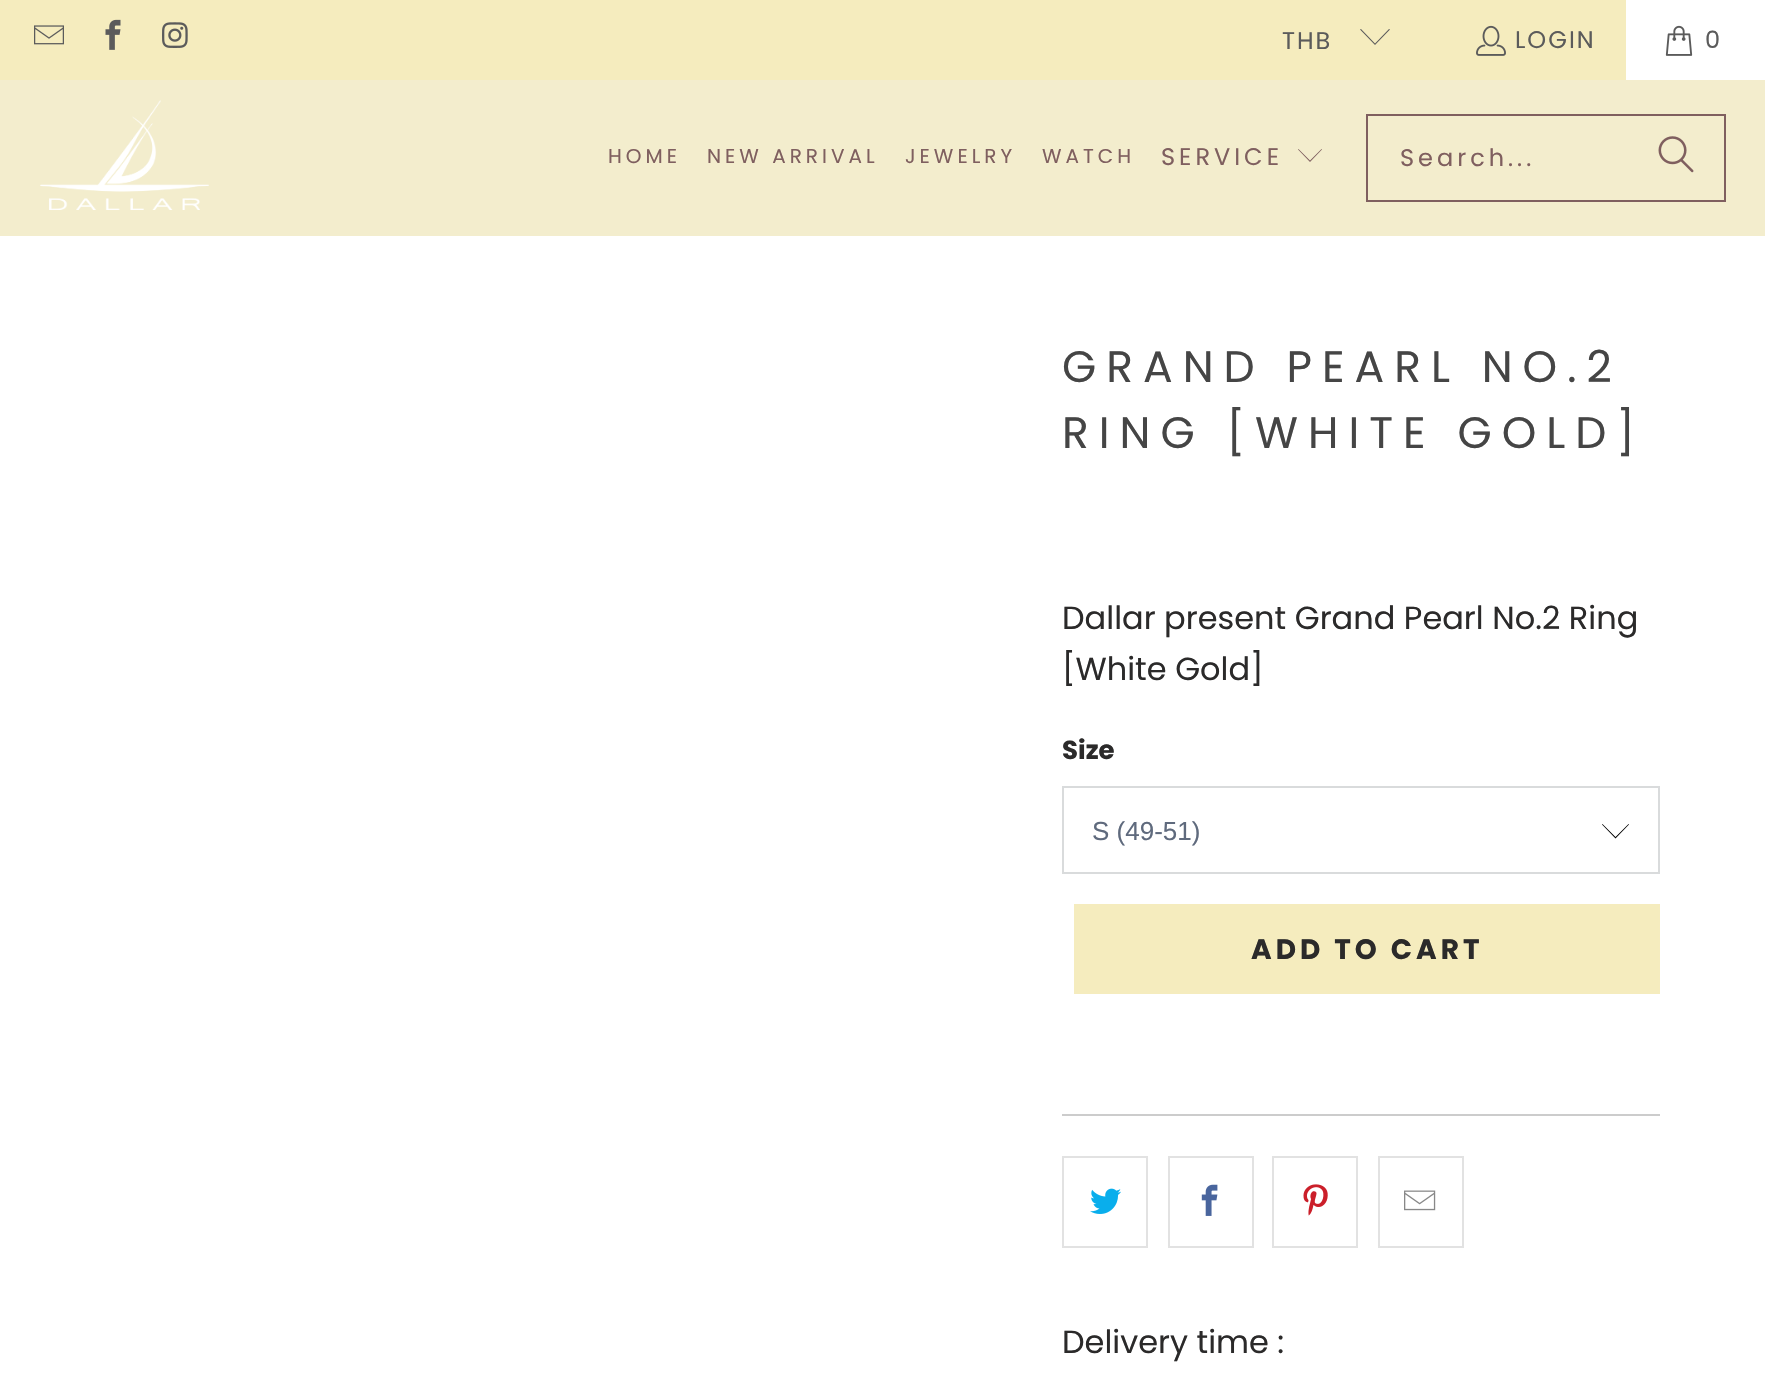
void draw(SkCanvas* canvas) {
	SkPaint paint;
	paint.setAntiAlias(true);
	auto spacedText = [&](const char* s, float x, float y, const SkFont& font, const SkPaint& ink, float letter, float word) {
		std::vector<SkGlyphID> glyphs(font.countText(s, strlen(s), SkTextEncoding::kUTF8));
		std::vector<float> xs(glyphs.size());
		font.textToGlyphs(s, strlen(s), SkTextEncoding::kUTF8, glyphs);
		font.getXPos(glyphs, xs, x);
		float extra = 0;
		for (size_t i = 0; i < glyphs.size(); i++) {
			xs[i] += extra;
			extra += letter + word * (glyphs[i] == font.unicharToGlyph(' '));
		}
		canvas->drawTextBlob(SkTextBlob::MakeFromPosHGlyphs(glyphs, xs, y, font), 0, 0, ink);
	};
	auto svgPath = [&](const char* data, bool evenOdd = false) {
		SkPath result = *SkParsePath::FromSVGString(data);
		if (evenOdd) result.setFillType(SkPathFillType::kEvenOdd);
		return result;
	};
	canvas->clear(0xffffffff);
	paint.setColor(0xfff5ecbe);
	canvas->drawRect(SkRect::MakeXYWH(0, 0, 1626, 80), paint);
	canvas->drawImageRect(SkImages::DeferredFromEncodedData(SkData::MakeFromFileName("img1.png")), SkRect::MakeXYWH(34, 25, 30, 20), SkSamplingOptions());
	canvas->drawImageRect(SkImages::DeferredFromEncodedData(SkData::MakeFromFileName("img2.png")), SkRect::MakeXYWH(105, 19, 16, 31), SkSamplingOptions());
	canvas->drawImageRect(SkImages::DeferredFromEncodedData(SkData::MakeFromFileName("img3.png")), SkRect::MakeXYWH(162, 22, 26, 26), SkSamplingOptions());
	SkFont f1(fontMgr->matchFamilyStyle("Poppins", SkFontStyle::Normal()), 24);
	f1.setSubpixel(true);
	paint.setColor(0xff5b5b5b);
	spacedText("THB", 1282, 49, f1, paint, 2, 0);
	canvas->drawPath(svgPath("M1375 45L1360 29.5L1361 29L1375 43.5L1389 29L1390 29.5Z"), paint);
	canvas->drawImageRect(SkImages::DeferredFromEncodedData(SkData::MakeFromFileName("img4.png")), SkRect::MakeXYWH(1476, 25, 30, 31), SkSamplingOptions());
	spacedText("LOGIN", 1515, 48, f1, paint, 2, 0);
	canvas->drawImageRect(SkImages::DeferredFromEncodedData(SkData::MakeFromFileName("img5.png")), SkRect::MakeXYWH(1665, 25, 28, 31), SkSamplingOptions());
	spacedText("0", 1705, 48, f1, paint, 2, 0);
	paint.setColor(0xfff3edcd);
	canvas->drawRect(SkRect::MakeXYWH(0, 80, 1765, 156), paint);
	canvas->drawImageRect(SkImages::DeferredFromEncodedData(SkData::MakeFromFileName("img6.png")), SkRect::MakeXYWH(40, 100, 169, 110), SkSamplingOptions());
	SkFont f2(fontMgr->matchFamilyStyle("Poppins", SkFontStyle::Normal()), 20);
	f2.setSubpixel(true);
	paint.setColor(0xff7f5f5f);
	spacedText("HOME", 608, 163, f2, paint, 4, 0);
	spacedText("NEW ARRIVAL", 707, 163, f2, paint, 4, 0);
	spacedText("JEWELRY", 905, 163, f2, paint, 4, 0);
	spacedText("WATCH", 1042, 163, f2, paint, 4, 0);
	spacedText("SERVICE", 1161, 165, f1, paint, 4, 0);
	canvas->drawPath(svgPath("M1310 162L1298 149.5L1298.5 149L1310 160.5L1321.5 149L1322 149.5Z"), paint);
	paint.setStroke(true);
	paint.setStrokeWidth(2);
	canvas->drawRect(SkRect::MakeXYWH(1367, 115, 358, 86), paint);
	paint.setStroke(false);
	spacedText("Search...", 1400, 166, f1, paint, 4, 0);
	canvas->drawImageRect(SkImages::DeferredFromEncodedData(SkData::MakeFromFileName("img7.png")), SkRect::MakeXYWH(1658, 136, 36, 37), SkSamplingOptions());
	SkFont f3(fontMgr->matchFamilyStyle("Poppins", SkFontStyle::Normal()), 44);
	f3.setSubpixel(true);
	paint.setColor(0xff454545);
	spacedText("GRAND PEARL NO.2", 1062, 382, f3, paint, 10, 0);
	spacedText("RING [WHITE GOLD]", 1062, 448, f3, paint, 10, 0);
	SkFont f4(fontMgr->matchFamilyStyle("Poppins", SkFontStyle::Normal()), 32);
	f4.setSubpixel(true);
	paint.setColor(0xff2b2a2a);
	canvas->drawString("Dallar present Grand Pearl No.2 Ring", 1062, 629, f4, paint);
	canvas->drawString("[White Gold]", 1062, 680, f4, paint);
	SkFont f5(fontMgr->matchFamilyStyle("Poppins", SkFontStyle::Bold()), 26);
	f5.setSubpixel(true);
	canvas->drawString("Size", 1062, 759, f5, paint);
	paint.setColor(0xff000000);
	canvas->drawPath(svgPath("M1615.5 838.5L1602 824.5L1602.5 824L1615.5 837L1628.5 824L1629 824.5Z"), paint);
	paint.setStroke(true);
	paint.setColor(0xffd9dbdc);
	canvas->drawRect(SkRect::MakeXYWH(1063, 787, 596, 86), paint);
	SkFont f6(fontMgr->matchFamilyStyle("Liberation Sans", SkFontStyle::Normal()), 26);
	f6.setSubpixel(true);
	paint.setStroke(false);
	paint.setColor(0xff5f6a7d);
	canvas->drawString("S (49-51)", 1092, 840, f6, paint);
	paint.setColor(0xfff5ecbe);
	canvas->drawRect(SkRect::MakeXYWH(1074, 904, 586, 90), paint);
	SkFont f7(fontMgr->matchFamilyStyle("Poppins", SkFontStyle::Bold()), 28);
	f7.setSubpixel(true);
	paint.setColor(0xff2b2a2a);
	spacedText("ADD TO CART", 1251, 959, f7, paint, 4, 0);
	paint.setColor(0xffcccccc);
	canvas->drawRect(SkRect::MakeXYWH(1062, 1114, 598, 2), paint);
	paint.setStroke(true);
	paint.setColor(0xffe2e2e2);
	canvas->drawRect(SkRect::MakeXYWH(1063, 1157, 84, 90), paint);
	canvas->drawImageRect(SkImages::DeferredFromEncodedData(SkData::MakeFromFileName("img8.png")), SkRect::MakeXYWH(1090, 1188, 31, 26), SkSamplingOptions());
	canvas->drawRect(SkRect::MakeXYWH(1169, 1157, 84, 90), paint);
	canvas->drawImageRect(SkImages::DeferredFromEncodedData(SkData::MakeFromFileName("img9.png")), SkRect::MakeXYWH(1201, 1184, 17, 32), SkSamplingOptions());
	canvas->drawRect(SkRect::MakeXYWH(1273, 1157, 84, 90), paint);
	canvas->drawImageRect(SkImages::DeferredFromEncodedData(SkData::MakeFromFileName("img10.png")), SkRect::MakeXYWH(1303, 1184, 25, 32), SkSamplingOptions());
	canvas->drawRect(SkRect::MakeXYWH(1379, 1157, 84, 90), paint);
	canvas->drawImageRect(SkImages::DeferredFromEncodedData(SkData::MakeFromFileName("img11.png")), SkRect::MakeXYWH(1404, 1190, 32, 21), SkSamplingOptions());
	paint.setStroke(false);
	paint.setColor(0xff2b2a2a);
	canvas->drawString("Delivery time :", 1062, 1353, f4, paint);
}
